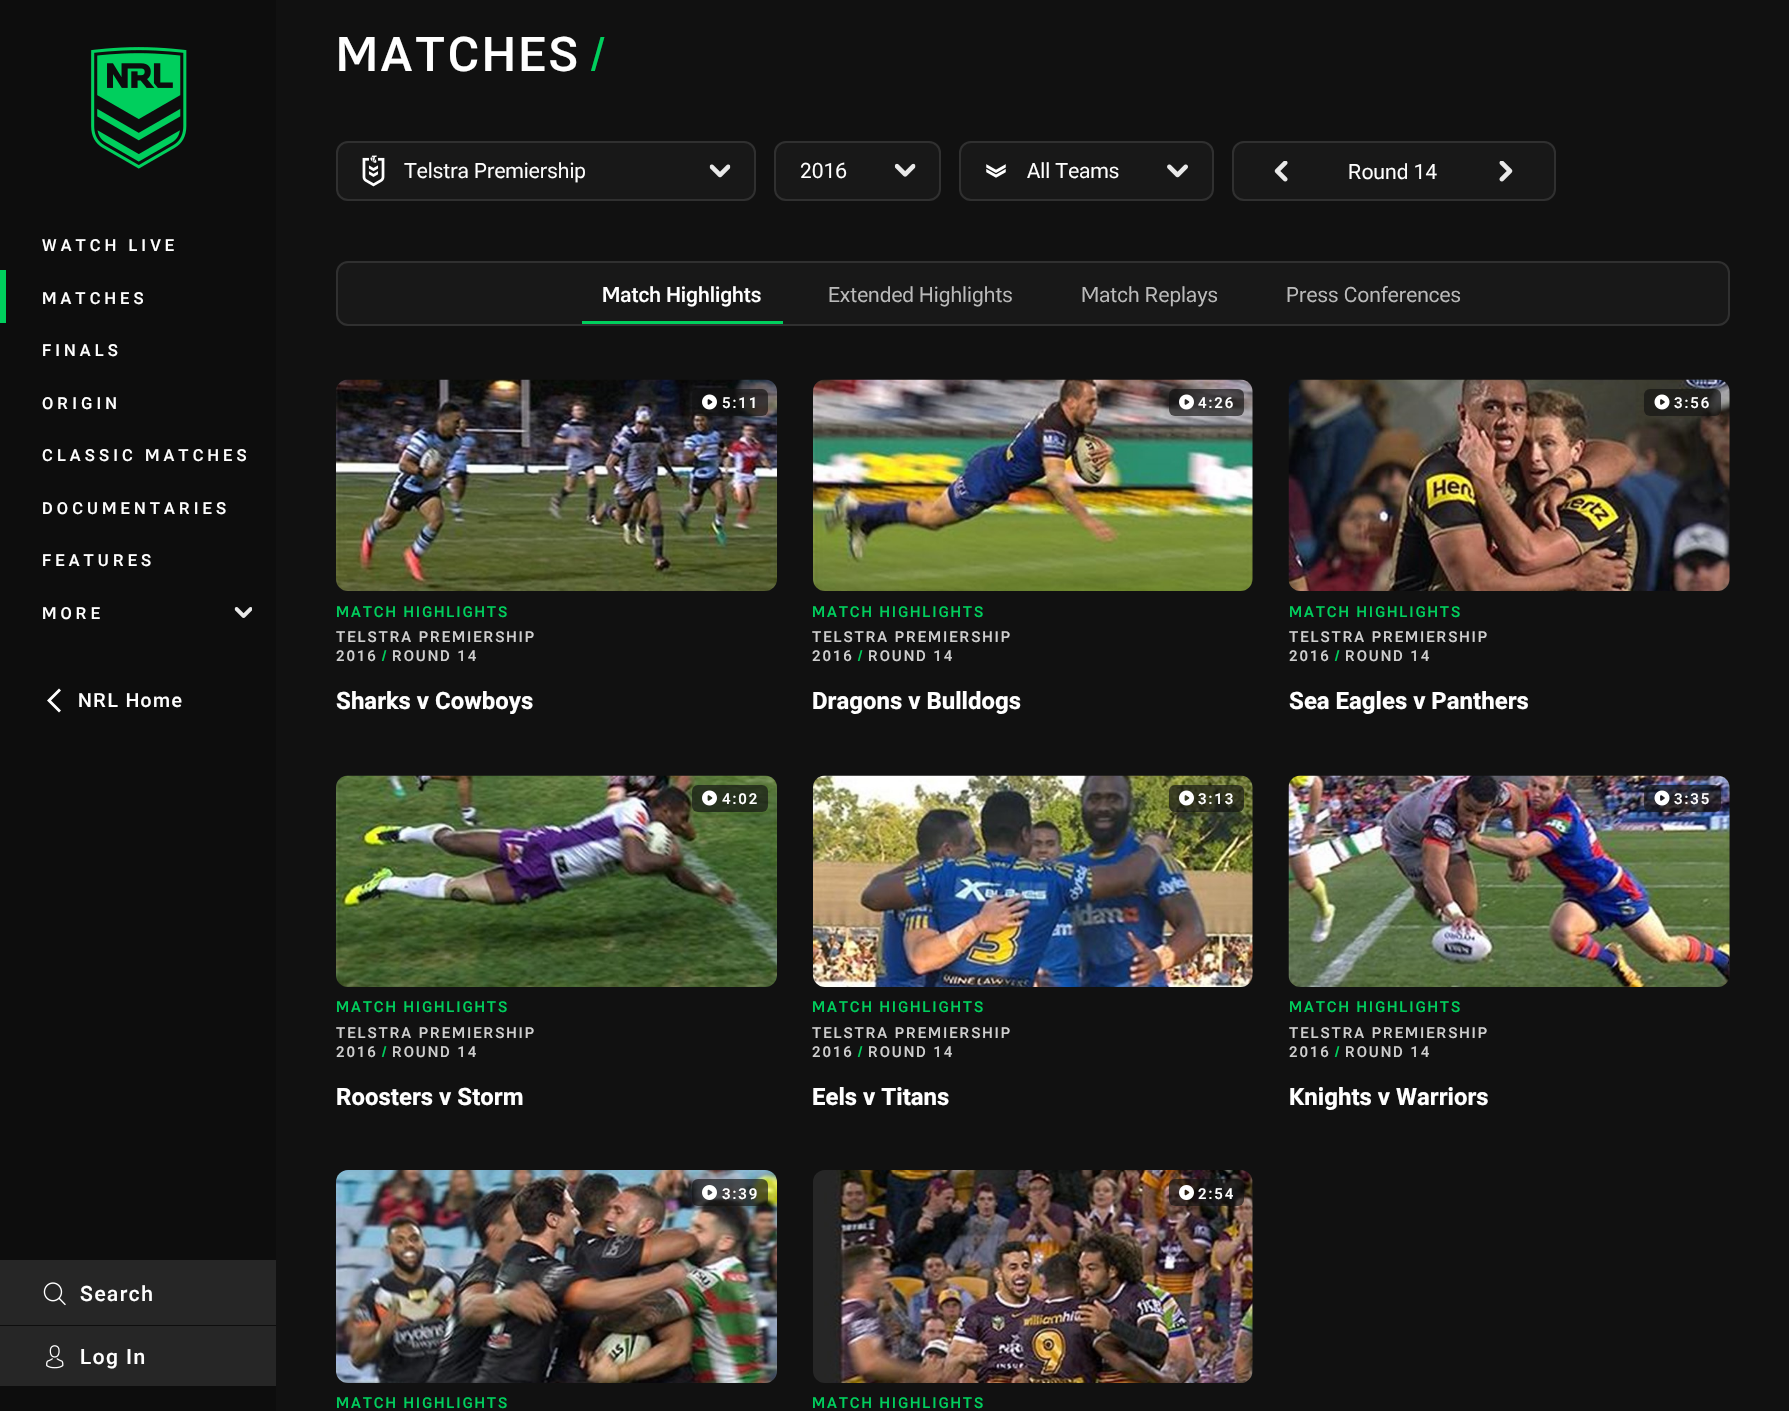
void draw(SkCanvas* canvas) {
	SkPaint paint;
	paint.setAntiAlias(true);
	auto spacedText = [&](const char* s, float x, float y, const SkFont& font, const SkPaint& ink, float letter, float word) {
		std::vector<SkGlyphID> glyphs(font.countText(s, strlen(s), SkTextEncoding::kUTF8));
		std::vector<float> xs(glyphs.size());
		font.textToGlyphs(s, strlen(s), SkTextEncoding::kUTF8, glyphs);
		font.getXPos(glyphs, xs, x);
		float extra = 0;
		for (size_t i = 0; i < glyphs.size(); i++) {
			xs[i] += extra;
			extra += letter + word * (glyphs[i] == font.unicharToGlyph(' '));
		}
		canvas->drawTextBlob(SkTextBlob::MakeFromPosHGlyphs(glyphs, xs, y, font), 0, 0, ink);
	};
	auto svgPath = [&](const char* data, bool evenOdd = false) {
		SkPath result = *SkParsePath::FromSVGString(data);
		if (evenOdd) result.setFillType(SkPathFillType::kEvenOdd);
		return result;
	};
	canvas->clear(0xff111111);
	paint.setColor(0xff0d0d0d);
	canvas->drawRect(SkRect::MakeXYWH(0, 0, 276, 1411), paint);
	canvas->drawImageRect(SkImages::DeferredFromEncodedData(SkData::MakeFromFileName("img1.png")), SkRect::MakeXYWH(91, 47, 96, 122), SkSamplingOptions());
	SkFont f1(fontMgr->matchFamilyStyle("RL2", SkFontStyle(500, SkFontStyle::kNormal_Width, SkFontStyle::kUpright_Slant)), 16.5);
	f1.setSubpixel(true);
	paint.setColor(0xffffffff);
	spacedText("WATCH LIVE", 42, 251, f1, paint, 4.1, 0);
	paint.setColor(0xff00cf5d);
	canvas->drawRect(SkRect::MakeXYWH(0, 270, 6, 53), paint);
	paint.setColor(0xffffffff);
	spacedText("MATCHES", 42, 304, f1, paint, 4.1, 0);
	spacedText("FINALS", 42, 356, f1, paint, 4.1, 0);
	spacedText("ORIGIN", 42, 409, f1, paint, 4.1, 0);
	spacedText("CLASSIC MATCHES", 42, 461, f1, paint, 4.1, 0);
	spacedText("DOCUMENTARIES", 42, 514, f1, paint, 4.1, 0);
	spacedText("FEATURES", 42, 566, f1, paint, 4.1, 0);
	spacedText("MORE", 42, 619, f1, paint, 4.1, 0);
	canvas->drawImageRect(SkImages::DeferredFromEncodedData(SkData::MakeFromFileName("img2.png")), SkRect::MakeXYWH(234, 607, 18, 11), SkSamplingOptions());
	canvas->drawPath(svgPath("M47 700.5L59 688.5L61 690.5L51 700.5L61 710.5L59 712.5Z"), paint);
	SkFont f2(fontMgr->matchFamilyStyle("RL2", SkFontStyle(500, SkFontStyle::kNormal_Width, SkFontStyle::kUpright_Slant)), 19.5);
	f2.setSubpixel(true);
	spacedText("NRL Home", 78, 707, f2, paint, 1.5, 0);
	paint.setColor(0xff262626);
	canvas->drawRect(SkRect::MakeXYWH(0, 1260, 276, 65), paint);
	canvas->drawImageRect(SkImages::DeferredFromEncodedData(SkData::MakeFromFileName("img3.png")), SkRect::MakeXYWH(43, 1282, 23, 24), SkSamplingOptions());
	SkFont f3(fontMgr->matchFamilyStyle("RL2", SkFontStyle(500, SkFontStyle::kNormal_Width, SkFontStyle::kUpright_Slant)), 21);
	f3.setSubpixel(true);
	paint.setColor(0xffffffff);
	spacedText("Search", 80, 1301, f3, paint, 1.5, 0);
	paint.setColor(0xff262626);
	canvas->drawRect(SkRect::MakeXYWH(0, 1326, 276, 60), paint);
	canvas->drawImageRect(SkImages::DeferredFromEncodedData(SkData::MakeFromFileName("img4.png")), SkRect::MakeXYWH(46, 1345, 18, 24), SkSamplingOptions());
	paint.setColor(0xffffffff);
	spacedText("Log In", 80, 1364, f3, paint, 1.5, 0);
	SkFont f4(fontMgr->matchFamilyStyle("RL2", SkFontStyle(500, SkFontStyle::kNormal_Width, SkFontStyle::kUpright_Slant)), 48);
	f4.setSubpixel(true);
	spacedText("MATCHES", 336, 71, f4, paint, 3, 0);
	SkFont f5(fontMgr->matchFamilyStyle("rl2", SkFontStyle::Normal()), 48);
	f5.setSubpixel(true);
	paint.setColor(0xff00cf5d);
	spacedText("/", 588, 71, f5, paint, 3, 0);
	paint.setColor(0xff181818);
	canvas->drawRoundRect(SkRect::MakeXYWH(336, 141, 420, 60), 12, 12, paint);
	paint.setStroke(true);
	paint.setStrokeWidth(2);
	paint.setColor(0x1affffff);
	canvas->drawRoundRect(SkRect::MakeXYWH(337, 142, 418, 58), 11, 11, paint);
	canvas->drawImageRect(SkImages::DeferredFromEncodedData(SkData::MakeFromFileName("img5.png")), SkRect::MakeXYWH(362, 155, 23, 32), SkSamplingOptions());
	SkFont f6(fontMgr->matchFamilyStyle("rl2", SkFontStyle::Normal()), 21);
	f6.setSubpixel(true);
	paint.setStroke(false);
	paint.setColor(0xffffffff);
	canvas->drawString("Telstra Premiership", 404, 178, f6, paint);
	canvas->drawImageRect(SkImages::DeferredFromEncodedData(SkData::MakeFromFileName("img6.png")), SkRect::MakeXYWH(709, 164, 22, 14), SkSamplingOptions());
	paint.setColor(0xff181818);
	canvas->drawRoundRect(SkRect::MakeXYWH(774, 141, 167, 60), 12, 12, paint);
	paint.setStroke(true);
	paint.setColor(0x1affffff);
	canvas->drawRoundRect(SkRect::MakeXYWH(775, 142, 165, 58), 11, 11, paint);
	paint.setStroke(false);
	paint.setColor(0xffffffff);
	canvas->drawString("2016", 800, 178, f6, paint);
	canvas->drawImageRect(SkImages::DeferredFromEncodedData(SkData::MakeFromFileName("img7.png")), SkRect::MakeXYWH(894, 163, 22, 14), SkSamplingOptions());
	paint.setColor(0xff181818);
	canvas->drawRoundRect(SkRect::MakeXYWH(959, 141, 255, 60), 12, 12, paint);
	paint.setStroke(true);
	paint.setColor(0x1affffff);
	canvas->drawRoundRect(SkRect::MakeXYWH(960, 142, 253, 58), 11, 11, paint);
	canvas->drawImageRect(SkImages::DeferredFromEncodedData(SkData::MakeFromFileName("img8.png")), SkRect::MakeXYWH(986, 164, 20, 14), SkSamplingOptions());
	paint.setStroke(false);
	paint.setColor(0xffffffff);
	canvas->drawString("All Teams", 1027, 178, f6, paint);
	canvas->drawImageRect(SkImages::DeferredFromEncodedData(SkData::MakeFromFileName("img9.png")), SkRect::MakeXYWH(1167, 164, 21, 14), SkSamplingOptions());
	paint.setColor(0xff181818);
	canvas->drawRoundRect(SkRect::MakeXYWH(1232, 141, 324, 60), 12, 12, paint);
	paint.setStroke(true);
	paint.setColor(0x1affffff);
	canvas->drawRoundRect(SkRect::MakeXYWH(1233, 142, 322, 58), 11, 11, paint);
	canvas->drawImageRect(SkImages::DeferredFromEncodedData(SkData::MakeFromFileName("img10.png")), SkRect::MakeXYWH(1274, 161, 14, 21), SkSamplingOptions());
	paint.setStroke(false);
	paint.setColor(0xffffffff);
	canvas->drawString("Round 14", 1348, 179, f6, paint);
	canvas->drawImageRect(SkImages::DeferredFromEncodedData(SkData::MakeFromFileName("img11.png")), SkRect::MakeXYWH(1499, 161, 14, 21), SkSamplingOptions());
	paint.setColor(0xff181818);
	canvas->drawRoundRect(SkRect::MakeXYWH(336, 261, 1394, 65), 12, 12, paint);
	paint.setStroke(true);
	paint.setColor(0x1affffff);
	canvas->drawRoundRect(SkRect::MakeXYWH(337, 262, 1392, 63), 11, 11, paint);
	paint.setStroke(false);
	paint.setColor(0xff00cf5d);
	canvas->drawRect(SkRect::MakeXYWH(582, 321, 201, 3), paint);
	paint.setColor(0xffffffff);
	canvas->drawString("Match Highlights", 602, 302, f3, paint);
	paint.setColor(0xffbababa);
	canvas->drawString("Extended Highlights", 828, 302, f6, paint);
	canvas->drawString("Match Replays", 1081, 302, f6, paint);
	canvas->drawString("Press Conferences", 1286, 302, f6, paint);
	canvas->drawImageRect(SkImages::DeferredFromEncodedData(SkData::MakeFromFileName("img12.png")), SkRect::MakeXYWH(336, 379, 441, 212), SkSamplingOptions());
	paint.setColor(0xa6111111);
	canvas->drawRoundRect(SkRect::MakeXYWH(692, 389, 76, 27), 6, 6, paint);
	canvas->drawImageRect(SkImages::DeferredFromEncodedData(SkData::MakeFromFileName("img13.png")), SkRect::MakeXYWH(702, 394, 15, 16), SkSamplingOptions());
	SkFont f7(fontMgr->matchFamilyStyle("RL2", SkFontStyle(500, SkFontStyle::kNormal_Width, SkFontStyle::kUpright_Slant)), 15);
	f7.setSubpixel(true);
	paint.setColor(0xffffffff);
	spacedText("5:11", 722, 408, f7, paint, 1.9, 0);
	paint.setColor(0xff00cf5d);
	spacedText("MATCH HIGHLIGHTS", 336, 617, f7, paint, 1.9, 0);
	paint.setColor(0xffcfcfcf);
	spacedText("TELSTRA PREMIERSHIP", 336, 642, f7, paint, 1.9, 0);
	spacedText("2016", 336, 661, f7, paint, 1.9, 0);
	paint.setColor(0xff00cf5d);
	spacedText("/", 381, 661, f7, paint, 1.9, 0);
	paint.setColor(0xffcfcfcf);
	spacedText("ROUND 14", 392, 661, f7, paint, 1.9, 0);
	SkFont f8(fontMgr->matchFamilyStyle("RL2", SkFontStyle::Bold()), 24);
	f8.setSubpixel(true);
	paint.setColor(0xffffffff);
	canvas->drawString("Sharks v Cowboys", 336, 709, f8, paint);
	canvas->drawImageRect(SkImages::DeferredFromEncodedData(SkData::MakeFromFileName("img14.png")), SkRect::MakeXYWH(813, 379, 440, 212), SkSamplingOptions());
	paint.setColor(0xa6111111);
	canvas->drawRoundRect(SkRect::MakeXYWH(1169, 389, 75, 27), 6, 6, paint);
	canvas->drawImageRect(SkImages::DeferredFromEncodedData(SkData::MakeFromFileName("img15.png")), SkRect::MakeXYWH(1179, 394, 15, 16), SkSamplingOptions());
	paint.setColor(0xffffffff);
	spacedText("4:26", 1198, 408, f7, paint, 1.9, 0);
	paint.setColor(0xff00cf5d);
	spacedText("MATCH HIGHLIGHTS", 812, 617, f7, paint, 1.9, 0);
	paint.setColor(0xffcfcfcf);
	spacedText("TELSTRA PREMIERSHIP", 812, 642, f7, paint, 1.9, 0);
	spacedText("2016", 812, 661, f7, paint, 1.9, 0);
	paint.setColor(0xff00cf5d);
	spacedText("/", 857, 661, f7, paint, 1.9, 0);
	paint.setColor(0xffcfcfcf);
	spacedText("ROUND 14", 868, 661, f7, paint, 1.9, 0);
	paint.setColor(0xffffffff);
	canvas->drawString("Dragons v Bulldogs", 812, 709, f8, paint);
	canvas->drawImageRect(SkImages::DeferredFromEncodedData(SkData::MakeFromFileName("img16.png")), SkRect::MakeXYWH(1288, 379, 442, 212), SkSamplingOptions());
	paint.setColor(0xa6111111);
	canvas->drawRoundRect(SkRect::MakeXYWH(1644, 389, 77, 27), 6, 6, paint);
	canvas->drawImageRect(SkImages::DeferredFromEncodedData(SkData::MakeFromFileName("img17.png")), SkRect::MakeXYWH(1654, 394, 16, 16), SkSamplingOptions());
	paint.setColor(0xffffffff);
	spacedText("3:56", 1674, 408, f7, paint, 1.9, 0);
	paint.setColor(0xff00cf5d);
	spacedText("MATCH HIGHLIGHTS", 1289, 617, f7, paint, 1.9, 0);
	paint.setColor(0xffcfcfcf);
	spacedText("TELSTRA PREMIERSHIP", 1289, 642, f7, paint, 1.9, 0);
	spacedText("2016", 1289, 661, f7, paint, 1.9, 0);
	paint.setColor(0xff00cf5d);
	spacedText("/", 1334, 661, f7, paint, 1.9, 0);
	paint.setColor(0xffcfcfcf);
	spacedText("ROUND 14", 1345, 661, f7, paint, 1.9, 0);
	paint.setColor(0xffffffff);
	canvas->drawString("Sea Eagles v Panthers", 1289, 709, f8, paint);
	canvas->drawImageRect(SkImages::DeferredFromEncodedData(SkData::MakeFromFileName("img18.png")), SkRect::MakeXYWH(336, 775, 441, 212), SkSamplingOptions());
	paint.setColor(0xa6111111);
	canvas->drawRoundRect(SkRect::MakeXYWH(692, 785, 76, 27), 6, 6, paint);
	canvas->drawImageRect(SkImages::DeferredFromEncodedData(SkData::MakeFromFileName("img19.png")), SkRect::MakeXYWH(702, 790, 15, 16), SkSamplingOptions());
	paint.setColor(0xffffffff);
	spacedText("4:02", 722, 804, f7, paint, 1.9, 0);
	paint.setColor(0xff00cf5d);
	spacedText("MATCH HIGHLIGHTS", 336, 1012, f7, paint, 1.9, 0);
	paint.setColor(0xffcfcfcf);
	spacedText("TELSTRA PREMIERSHIP", 336, 1038, f7, paint, 1.9, 0);
	spacedText("2016", 336, 1057, f7, paint, 1.9, 0);
	paint.setColor(0xff00cf5d);
	spacedText("/", 381, 1057, f7, paint, 1.9, 0);
	paint.setColor(0xffcfcfcf);
	spacedText("ROUND 14", 392, 1057, f7, paint, 1.9, 0);
	paint.setColor(0xffffffff);
	canvas->drawString("Roosters v Storm", 336, 1105, f8, paint);
	canvas->drawImageRect(SkImages::DeferredFromEncodedData(SkData::MakeFromFileName("img20.png")), SkRect::MakeXYWH(813, 775, 440, 212), SkSamplingOptions());
	paint.setColor(0xa6111111);
	canvas->drawRoundRect(SkRect::MakeXYWH(1169, 785, 75, 27), 6, 6, paint);
	canvas->drawImageRect(SkImages::DeferredFromEncodedData(SkData::MakeFromFileName("img21.png")), SkRect::MakeXYWH(1179, 790, 15, 16), SkSamplingOptions());
	paint.setColor(0xffffffff);
	spacedText("3:13", 1198, 804, f7, paint, 1.9, 0);
	paint.setColor(0xff00cf5d);
	spacedText("MATCH HIGHLIGHTS", 812, 1012, f7, paint, 1.9, 0);
	paint.setColor(0xffcfcfcf);
	spacedText("TELSTRA PREMIERSHIP", 812, 1038, f7, paint, 1.9, 0);
	spacedText("2016", 812, 1057, f7, paint, 1.9, 0);
	paint.setColor(0xff00cf5d);
	spacedText("/", 857, 1057, f7, paint, 1.9, 0);
	paint.setColor(0xffcfcfcf);
	spacedText("ROUND 14", 868, 1057, f7, paint, 1.9, 0);
	paint.setColor(0xffffffff);
	canvas->drawString("Eels v Titans", 812, 1105, f8, paint);
	canvas->drawImageRect(SkImages::DeferredFromEncodedData(SkData::MakeFromFileName("img22.png")), SkRect::MakeXYWH(1288, 775, 442, 212), SkSamplingOptions());
	paint.setColor(0xa6111111);
	canvas->drawRoundRect(SkRect::MakeXYWH(1644, 785, 77, 27), 6, 6, paint);
	canvas->drawImageRect(SkImages::DeferredFromEncodedData(SkData::MakeFromFileName("img23.png")), SkRect::MakeXYWH(1654, 790, 16, 16), SkSamplingOptions());
	paint.setColor(0xffffffff);
	spacedText("3:35", 1674, 804, f7, paint, 1.9, 0);
	paint.setColor(0xff00cf5d);
	spacedText("MATCH HIGHLIGHTS", 1289, 1012, f7, paint, 1.9, 0);
	paint.setColor(0xffcfcfcf);
	spacedText("TELSTRA PREMIERSHIP", 1289, 1038, f7, paint, 1.9, 0);
	spacedText("2016", 1289, 1057, f7, paint, 1.9, 0);
	paint.setColor(0xff00cf5d);
	spacedText("/", 1334, 1057, f7, paint, 1.9, 0);
	paint.setColor(0xffcfcfcf);
	spacedText("ROUND 14", 1345, 1057, f7, paint, 1.9, 0);
	paint.setColor(0xffffffff);
	canvas->drawString("Knights v Warriors", 1289, 1105, f8, paint);
	canvas->drawImageRect(SkImages::DeferredFromEncodedData(SkData::MakeFromFileName("img24.png")), SkRect::MakeXYWH(336, 1170, 441, 213), SkSamplingOptions());
	paint.setColor(0xa6111111);
	canvas->drawRoundRect(SkRect::MakeXYWH(692, 1179, 76, 27), 6, 6, paint);
	canvas->drawImageRect(SkImages::DeferredFromEncodedData(SkData::MakeFromFileName("img25.png")), SkRect::MakeXYWH(702, 1185, 15, 15), SkSamplingOptions());
	paint.setColor(0xffffffff);
	spacedText("3:39", 722, 1199, f7, paint, 1.9, 0);
	paint.setColor(0xff00cf5d);
	spacedText("MATCH HIGHLIGHTS", 336, 1408, f7, paint, 1.9, 0);
	canvas->drawImageRect(SkImages::DeferredFromEncodedData(SkData::MakeFromFileName("img26.png")), SkRect::MakeXYWH(813, 1170, 440, 213), SkSamplingOptions());
	paint.setColor(0xa6111111);
	canvas->drawRoundRect(SkRect::MakeXYWH(1169, 1179, 75, 27), 6, 6, paint);
	canvas->drawImageRect(SkImages::DeferredFromEncodedData(SkData::MakeFromFileName("img27.png")), SkRect::MakeXYWH(1179, 1185, 15, 15), SkSamplingOptions());
	paint.setColor(0xffffffff);
	spacedText("2:54", 1198, 1199, f7, paint, 1.9, 0);
	paint.setColor(0xff00cf5d);
	spacedText("MATCH HIGHLIGHTS", 812, 1408, f7, paint, 1.9, 0);
}
